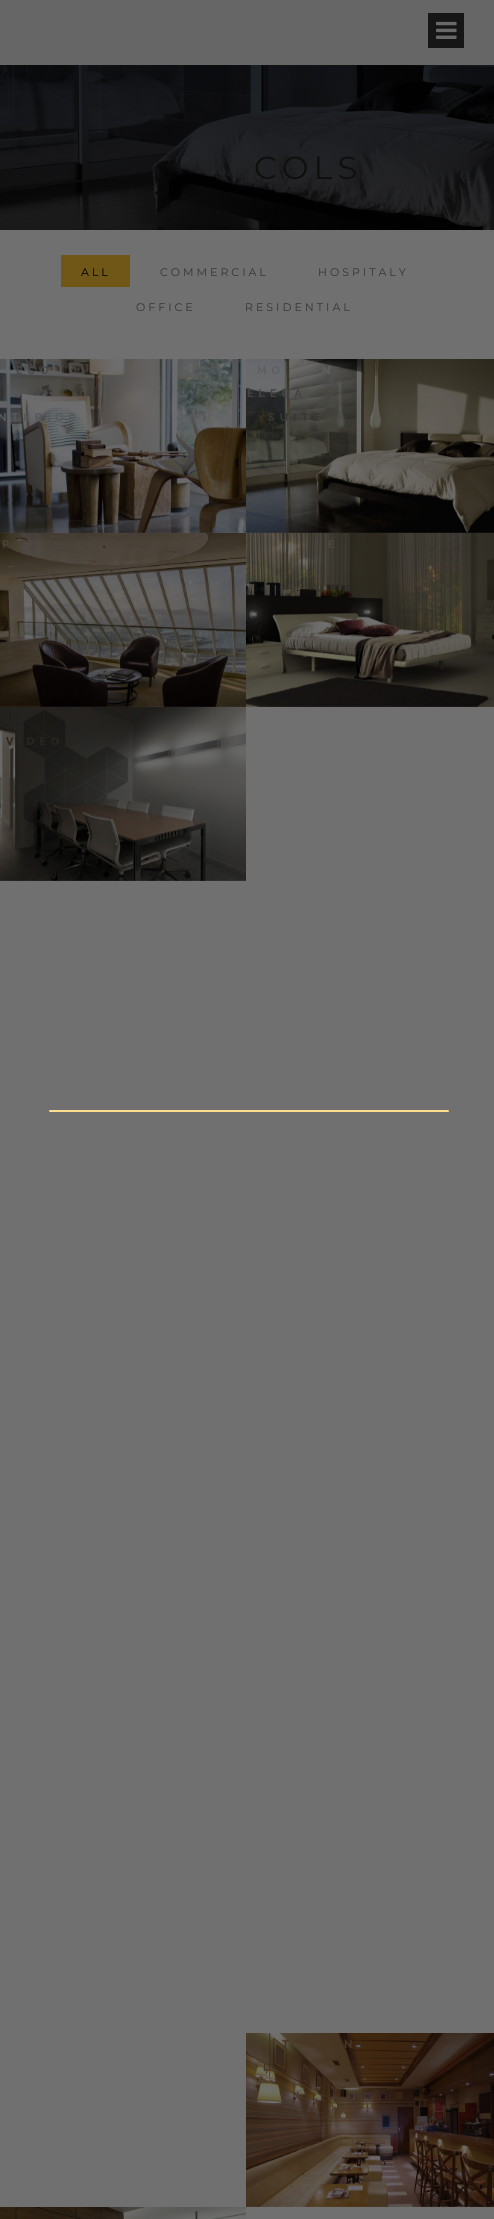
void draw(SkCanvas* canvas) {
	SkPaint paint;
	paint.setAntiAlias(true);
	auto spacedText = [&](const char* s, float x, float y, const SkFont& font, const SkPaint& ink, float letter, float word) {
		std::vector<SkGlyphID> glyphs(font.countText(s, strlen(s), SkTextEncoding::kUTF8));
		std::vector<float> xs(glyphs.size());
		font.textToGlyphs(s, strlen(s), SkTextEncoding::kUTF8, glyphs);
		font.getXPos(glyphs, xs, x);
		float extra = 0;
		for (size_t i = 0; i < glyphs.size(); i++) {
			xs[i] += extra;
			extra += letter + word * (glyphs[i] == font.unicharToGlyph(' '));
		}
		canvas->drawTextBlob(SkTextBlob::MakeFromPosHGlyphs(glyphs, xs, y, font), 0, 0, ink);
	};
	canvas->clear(0xffffffff);
	paint.setColor(0xff666667);
	canvas->drawRect(SkRect::MakeXYWH(0, 0, 494, 65), paint);
	paint.setColor(0xff161616);
	canvas->drawRect(SkRect::MakeXYWH(428, 13, 36, 35), paint);
	canvas->drawImageRect(SkImages::DeferredFromEncodedData(SkData::MakeFromFileName("img1.png")), SkRect::MakeXYWH(436, 21, 21, 18), SkSamplingOptions());
	canvas->drawImageRect(SkImages::DeferredFromEncodedData(SkData::MakeFromFileName("img2.png")), SkRect::MakeXYWH(0, 65, 494, 165), SkSamplingOptions());
	SkFont f1(fontMgr->matchFamilyStyle("Montserrat", SkFontStyle::Normal()), 32);
	f1.setSubpixel(true);
	paint.setColor(0xff0f0f0f);
	spacedText("COLS", 254, 179, f1, paint, 5, 0);
	paint.setColor(0xff707070);
	canvas->drawRect(SkRect::MakeXYWH(0, 230, 494, 1989), paint);
	paint.setColor(0xff705617);
	canvas->drawRect(SkRect::MakeXYWH(61, 255, 69, 32), paint);
	SkFont f2(fontMgr->matchFamilyStyle("Montserrat", SkFontStyle::Normal()), 11);
	f2.setSubpixel(true);
	paint.setColor(0xff070707);
	spacedText("ALL", 81, 276, f2, paint, 3, 0);
	paint.setColor(0xff3c3c3c);
	spacedText("COMMERCIAL", 160, 276, f2, paint, 3, 0);
	spacedText("HOSPITALY", 318, 276, f2, paint, 3, 0);
	spacedText("OFFICE", 136, 311, f2, paint, 3, 0);
	spacedText("RESIDENTIAL", 245, 311, f2, paint, 3, 0);
	canvas->drawImageRect(SkImages::DeferredFromEncodedData(SkData::MakeFromFileName("img3.png")), SkRect::MakeXYWH(0, 359, 246, 174), SkSamplingOptions());
	SkFont f3(fontMgr->matchFamilyStyle("Raleway", SkFontStyle::Bold()), 11);
	f3.setSubpixel(true);
	paint.setColor(0xff494949);
	spacedText("ECO", 16, 374, f3, paint, 5, 0);
	paint.setColor(0xff56595b);
	spacedText("NTERIOR", -2, 421, f3, paint, 5, 0);
	canvas->drawImageRect(SkImages::DeferredFromEncodedData(SkData::MakeFromFileName("img4.png")), SkRect::MakeXYWH(246, 359, 248, 174), SkSamplingOptions());
	paint.setColor(0xff5f5f5e);
	spacedText("MO", 257, 374, f3, paint, 5, 0);
	spacedText("N", 322, 374, f3, paint, 5, 0);
	paint.setColor(0xff444442);
	spacedText("ELEGA", 247, 397, f3, paint, 5, 0);
	paint.setColor(0xff363632);
	spacedText("SUITE", 268, 421, f3, paint, 5, 0);
	canvas->drawImageRect(SkImages::DeferredFromEncodedData(SkData::MakeFromFileName("img5.png")), SkRect::MakeXYWH(0, 533, 246, 174), SkSamplingOptions());
	paint.setColor(0xff484138);
	spacedText("P", 2, 548, f3, paint, 5, 0);
	canvas->drawImageRect(SkImages::DeferredFromEncodedData(SkData::MakeFromFileName("img6.png")), SkRect::MakeXYWH(246, 533, 248, 174), SkSamplingOptions());
	paint.setColor(0xff4b473e);
	spacedText("E", 328, 548, f3, paint, 5, 0);
	canvas->drawImageRect(SkImages::DeferredFromEncodedData(SkData::MakeFromFileName("img7.png")), SkRect::MakeXYWH(0, 707, 246, 174), SkSamplingOptions());
	paint.setColor(0xff272521);
	spacedText("VIDEO", 6, 745, f3, paint, 5, 0);
	canvas->drawImageRect(SkImages::DeferredFromEncodedData(SkData::MakeFromFileName("img8.png")), SkRect::MakeXYWH(246, 2033, 248, 174), SkSamplingOptions());
	paint.setColor(0xff443624);
	spacedText("T", 282, 2048, f3, paint, 5, 0);
	spacedText("N", 344, 2048, f3, paint, 5, 0);
	spacedText("I", 263, 2071, f3, paint, 5, 0);
	canvas->drawImageRect(SkImages::DeferredFromEncodedData(SkData::MakeFromFileName("img9.png")), SkRect::MakeXYWH(0, 2207, 246, 12), SkSamplingOptions());
	paint.setColor(0xfffede8f);
	canvas->drawRoundRect(SkRect::MakeXYWH(49, 1110, 400, 2), 1, 1, paint);
}
